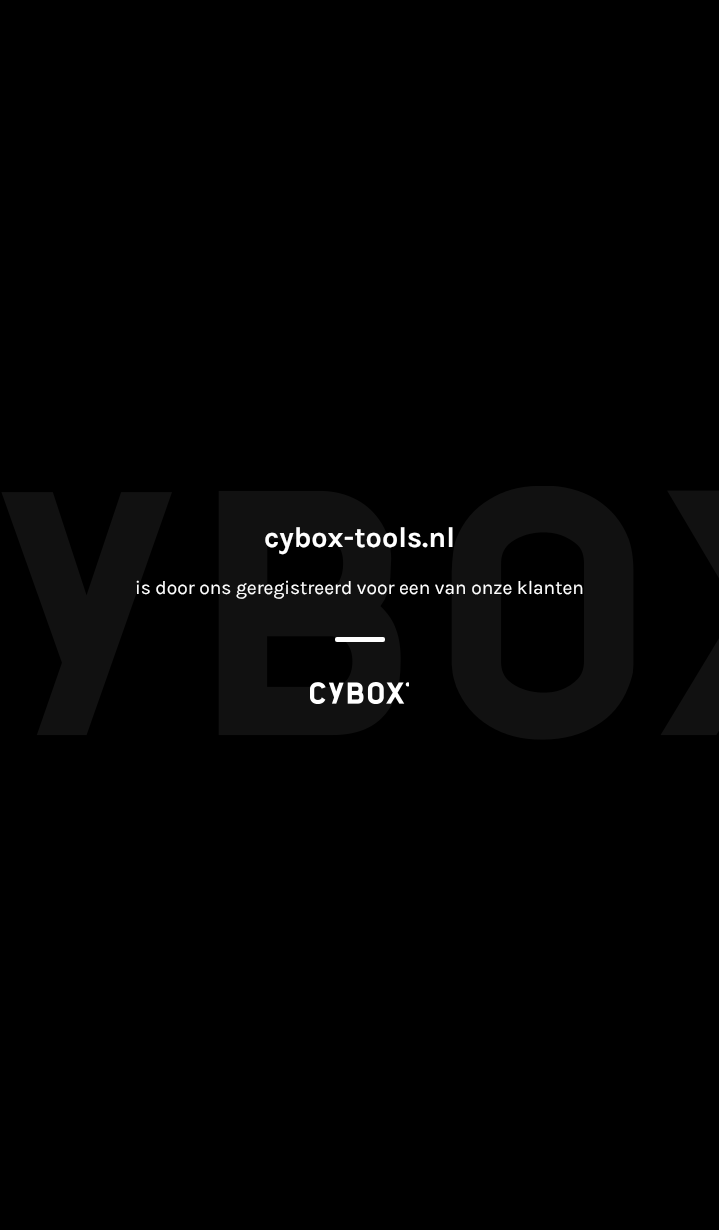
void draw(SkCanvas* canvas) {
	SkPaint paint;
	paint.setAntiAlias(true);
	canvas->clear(0xff000000);
	canvas->drawImageRect(SkImages::DeferredFromEncodedData(SkData::MakeFromFileName("img1.png")), SkRect::MakeXYWH(1, 486, 718, 254), SkSamplingOptions());
	SkFont f1(fontMgr->matchFamilyStyle("Karla", SkFontStyle::Bold()), 28.75);
	f1.setSubpixel(true);
	paint.setColor(0xffffffff);
	canvas->drawString("cybox-tools.nl", 264, 547, f1, paint);
	SkFont f2(fontMgr->matchFamilyStyle("Karla", SkFontStyle::Normal()), 19.2);
	f2.setSubpixel(true);
	canvas->drawString("is door ons geregistreerd voor een van onze klanten", 135, 594, f2, paint);
	canvas->drawRoundRect(SkRect::MakeXYWH(335, 637, 50, 5), 2, 2, paint);
	canvas->drawImageRect(SkImages::DeferredFromEncodedData(SkData::MakeFromFileName("img2.png")), SkRect::MakeXYWH(310, 682, 99, 22), SkSamplingOptions());
}
